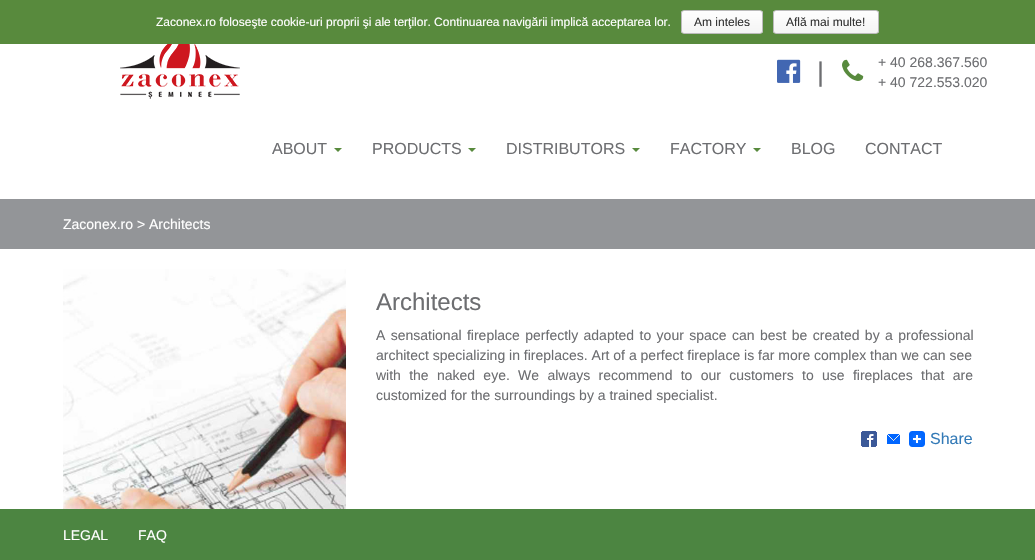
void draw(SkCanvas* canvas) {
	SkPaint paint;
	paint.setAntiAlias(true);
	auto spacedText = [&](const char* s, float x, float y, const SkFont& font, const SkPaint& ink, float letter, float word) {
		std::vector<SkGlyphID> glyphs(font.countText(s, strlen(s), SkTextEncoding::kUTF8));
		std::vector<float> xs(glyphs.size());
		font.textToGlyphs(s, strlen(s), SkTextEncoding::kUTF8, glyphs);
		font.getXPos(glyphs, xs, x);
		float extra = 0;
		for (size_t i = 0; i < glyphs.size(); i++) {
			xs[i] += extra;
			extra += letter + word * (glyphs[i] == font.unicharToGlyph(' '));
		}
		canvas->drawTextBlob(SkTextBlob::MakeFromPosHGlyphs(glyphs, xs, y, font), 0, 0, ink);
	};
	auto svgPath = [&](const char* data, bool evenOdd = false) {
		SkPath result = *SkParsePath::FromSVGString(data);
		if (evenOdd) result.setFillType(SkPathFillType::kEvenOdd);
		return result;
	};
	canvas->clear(0xffffffff);
	paint.setColor(0xff588a3d);
	canvas->drawRect(SkRect::MakeXYWH(0, 0, 1035, 44), paint);
	SkFont f1(fontMgr->matchFamilyStyle("Liberation Sans", SkFontStyle::Normal()), 12);
	f1.setSubpixel(true);
	paint.setColor(0xffffffff);
	canvas->drawString("Zaconex.ro foloseşte cookie-uri proprii şi ale terţilor. Continuarea navigării implică acceptarea lor.", 156, 26, f1, paint);
	canvas->save();
	canvas->clipPath(svgPath("M684 10H760C761.5 10 763 11.5 763 13V31C763 32.5 761.5 34 760 34H684C682.5 34 681 32.5 681 31V13C681 11.5 682.5 10 684 10Z"), true);
	{
		const SkColor colors[] = {0xfffefefe, 0xfff4f4f4};
		const float stops[] = {0, 1};
		const SkPoint ends[] = {{722, 11}, {722, 33}};
		paint.setShader(SkGradientShader::MakeLinear(ends, colors, stops, 2, SkTileMode::kClamp));
		paint.setAlpha(255);
	}
	canvas->drawRect(SkRect::MakeXYWH(681, 11, 82, 22), paint);
	canvas->restore();
	paint.setStroke(true);
	paint.setStrokeWidth(1);
	paint.setShader(nullptr);
	paint.setColor(0xffbbbbbb);
	canvas->drawRoundRect(SkRect::MakeXYWH(681.5, 10.5, 81, 23), 2.5, 2.5, paint);
	paint.setStroke(false);
	paint.setColor(0xff333333);
	canvas->drawString("Am inteles", 694, 26, f1, paint);
	canvas->save();
	canvas->clipPath(svgPath("M776 10H876C877.5 10 879 11.5 879 13V31C879 32.5 877.5 34 876 34H776C774.5 34 773 32.5 773 31V13C773 11.5 774.5 10 776 10Z"), true);
	{
		const SkColor colors[] = {0xfffefefe, 0xfff4f4f4};
		const float stops[] = {0, 1};
		const SkPoint ends[] = {{826, 11}, {826, 33}};
		paint.setShader(SkGradientShader::MakeLinear(ends, colors, stops, 2, SkTileMode::kClamp));
		paint.setAlpha(255);
	}
	canvas->drawRect(SkRect::MakeXYWH(773, 11, 106, 22), paint);
	canvas->restore();
	paint.setStroke(true);
	paint.setShader(nullptr);
	paint.setColor(0xffbbbbbb);
	canvas->drawRoundRect(SkRect::MakeXYWH(773.5, 10.5, 105, 23), 2.5, 2.5, paint);
	paint.setStroke(false);
	paint.setColor(0xff333333);
	canvas->drawString("Află mai multe!", 786, 26, f1, paint);
	canvas->drawImageRect(SkImages::DeferredFromEncodedData(SkData::MakeFromFileName("img1.png")), SkRect::MakeXYWH(120, 44, 120, 55), SkSamplingOptions());
	canvas->drawImageRect(SkImages::DeferredFromEncodedData(SkData::MakeFromFileName("img2.png")), SkRect::MakeXYWH(777, 59, 24, 24), SkSamplingOptions());
	SkFont f2(fontMgr->matchFamilyStyle("Liberation Sans", SkFontStyle::Normal()), 27);
	f2.setSubpixel(true);
	paint.setColor(0xff6d6e71);
	canvas->drawString("|", 817, 81, f2, paint);
	canvas->drawImageRect(SkImages::DeferredFromEncodedData(SkData::MakeFromFileName("img3.png")), SkRect::MakeXYWH(842, 59, 22, 22), SkSamplingOptions());
	SkFont f3(fontMgr->matchFamilyStyle("Liberation Sans", SkFontStyle::Normal()), 14);
	f3.setSubpixel(true);
	canvas->drawString("+ 40 268.367.560", 878, 67, f3, paint);
	canvas->drawString("+ 40 722.553.020", 878, 87, f3, paint);
	SkFont f4(fontMgr->matchFamilyStyle("Liberation Sans", SkFontStyle::Normal()), 16);
	f4.setSubpixel(true);
	canvas->drawString("ABOUT", 272, 154, f4, paint);
	paint.setColor(0xff588a3d);
	canvas->drawPath(svgPath("M334 148H342L338 152Z"), paint);
	paint.setColor(0xff6d6e71);
	canvas->drawString("PRODUCTS", 372, 154, f4, paint);
	paint.setColor(0xff588a3d);
	canvas->drawPath(svgPath("M468 148H476L472 152Z"), paint);
	paint.setColor(0xff6d6e71);
	canvas->drawString("DISTRIBUTORS", 506, 154, f4, paint);
	paint.setColor(0xff588a3d);
	canvas->drawPath(svgPath("M632 148H640L636 152Z"), paint);
	paint.setColor(0xff6d6e71);
	canvas->drawString("FACTORY", 670, 154, f4, paint);
	paint.setColor(0xff588a3d);
	canvas->drawPath(svgPath("M753 148H761L757 152Z"), paint);
	paint.setColor(0xff6d6e71);
	canvas->drawString("BLOG", 791, 154, f4, paint);
	canvas->drawString("CONTACT", 865, 154, f4, paint);
	paint.setColor(0xff939598);
	canvas->drawRect(SkRect::MakeXYWH(0, 199, 1035, 50), paint);
	paint.setColor(0xffffffff);
	canvas->drawString("Zaconex.ro > Architects", 63, 229, f3, paint);
	canvas->drawImageRect(SkImages::DeferredFromEncodedData(SkData::MakeFromFileName("img4.png")), SkRect::MakeXYWH(63, 269, 283, 240), SkSamplingOptions());
	SkFont f5(fontMgr->matchFamilyStyle("Liberation Sans", SkFontStyle::Normal()), 24);
	f5.setSubpixel(true);
	paint.setColor(0xff6d6e71);
	canvas->drawString("Architects", 376, 310, f5, paint);
	spacedText("A sensational fireplace perfectly adapted to your space can best be created by a professional", 376, 340, f3, paint, 0, 1.5);
	canvas->drawString("architect specializing in fireplaces. Art of a perfect fireplace is far more complex than we can see", 376, 360, f3, paint);
	spacedText("with the naked eye. We always recommend to our customers to use fireplaces that are", 376, 380, f3, paint, 0, 4.4);
	canvas->drawString("customized for the surroundings by a trained specialist.", 376, 400, f3, paint);
	canvas->drawImageRect(SkImages::DeferredFromEncodedData(SkData::MakeFromFileName("img5.png")), SkRect::MakeXYWH(861, 431, 16, 16), SkSamplingOptions());
	canvas->drawImageRect(SkImages::DeferredFromEncodedData(SkData::MakeFromFileName("img6.png")), SkRect::MakeXYWH(887, 434, 13, 10), SkSamplingOptions());
	canvas->drawImageRect(SkImages::DeferredFromEncodedData(SkData::MakeFromFileName("img7.png")), SkRect::MakeXYWH(909, 431, 16, 16), SkSamplingOptions());
	paint.setColor(0xff337ab7);
	canvas->drawString("Share", 930, 444, f4, paint);
	paint.setColor(0xff4c8541);
	canvas->drawRect(SkRect::MakeXYWH(0, 509, 1035, 51), paint);
	paint.setColor(0xffffffff);
	canvas->drawString("LEGAL", 63, 540, f3, paint);
	canvas->drawString("FAQ", 138, 540, f3, paint);
}
